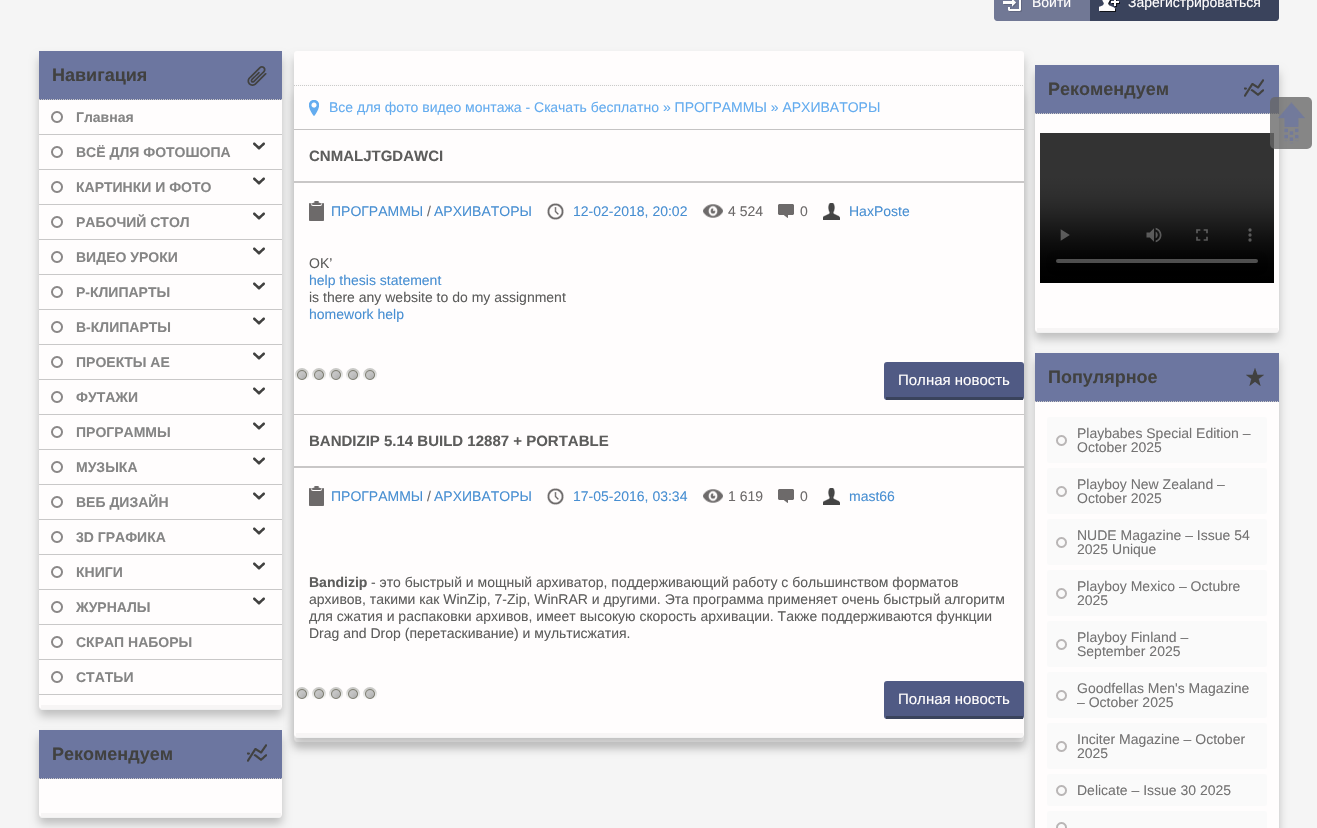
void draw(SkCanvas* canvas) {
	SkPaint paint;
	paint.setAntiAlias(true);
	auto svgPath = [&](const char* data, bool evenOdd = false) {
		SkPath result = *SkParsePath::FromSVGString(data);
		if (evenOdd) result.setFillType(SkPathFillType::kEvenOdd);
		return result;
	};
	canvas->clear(0xfff5f5f5);
	paint.setColor(0xff717895);
	canvas->drawPath(svgPath("M997-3H1090V21H997C995.5 21 994 19.5 994 18V0C994-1.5 995.5-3 997-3Z"), paint);
	canvas->drawImageRect(SkImages::DeferredFromEncodedData(SkData::MakeFromFileName("img1.png")), SkRect::MakeXYWH(1003, 0, 19, 12), SkSamplingOptions());
	SkFont f1(fontMgr->matchFamilyStyle("Liberation Sans", SkFontStyle::Normal()), 14);
	f1.setSubpixel(true);
	paint.setColor(0xfffffdfd);
	canvas->drawString("Войти", 1032, 7, f1, paint);
	paint.setColor(0xff3a435c);
	canvas->drawPath(svgPath("M1090-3H1276C1277.5-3 1279-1.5 1279 0V18C1279 19.5 1277.5 21 1276 21H1090Z"), paint);
	canvas->drawImageRect(SkImages::DeferredFromEncodedData(SkData::MakeFromFileName("img2.png")), SkRect::MakeXYWH(1099, 0, 21, 12), SkSamplingOptions());
	paint.setColor(0xfffffdfd);
	canvas->drawString("Зарегистрироваться", 1128, 7, f1, paint);
	paint.setColor(0xffbebebe);
	paint.setMaskFilter(SkMaskFilter::MakeBlur(kNormal_SkBlurStyle, 5));
	canvas->drawRoundRect(SkRect::MakeXYWH(294, 58, 730, 690), 3, 3, paint);
	paint.setMaskFilter(nullptr);
	paint.setColor(0xfff1f1f1);
	canvas->drawPath(svgPath("M294 738C294 740 295 742 297 742H1021C1023 742 1024 740 1024 738C1024 740 1023 741 1021 741H297C295 741 294 740 294 738Z"), paint);
	paint.setColor(0xfffffdfd);
	canvas->drawRoundRect(SkRect::MakeXYWH(294, 51, 730, 690), 3, 3, paint);
	paint.setStroke(true);
	paint.setStrokeWidth(1);
	paint.setColor(0xffcccccb);
	paint.setPathEffect(SkDashPathEffect::Make({{1, 1}}, 0));
	canvas->drawPath(svgPath("M294 85.5H1024"), paint);
	paint.setPathEffect(nullptr);
	paint.setStroke(false);
	paint.setColor(0xfff7f5f5);
	canvas->drawRect(SkRect::MakeXYWH(296, 737, 727, 4), paint);
	paint.setColor(0xffbebebe);
	paint.setMaskFilter(SkMaskFilter::MakeBlur(kNormal_SkBlurStyle, 5));
	canvas->drawRoundRect(SkRect::MakeXYWH(294, 93, 730, 651), 3, 3, paint);
	paint.setMaskFilter(nullptr);
	paint.setColor(0xfff1f1f1);
	canvas->drawPath(svgPath("M294 734C294 736 295 738 297 738H1021C1023 738 1024 736 1024 734C1024 736 1023 737 1021 737H297C295 737 294 736 294 734Z"), paint);
	paint.setColor(0xfffffdfd);
	canvas->drawRoundRect(SkRect::MakeXYWH(294, 86, 730, 651), 3, 3, paint);
	paint.setColor(0xffc5c3c3);
	canvas->drawRect(SkRect::MakeXYWH(294, 129, 730, 1), paint);
	paint.setColor(0xffc9c7c7);
	canvas->drawRect(SkRect::MakeXYWH(294, 181, 730, 2), paint);
	canvas->drawRect(SkRect::MakeXYWH(294, 414, 730, 1), paint);
	canvas->drawRect(SkRect::MakeXYWH(294, 466, 730, 2), paint);
	paint.setColor(0xffbebebe);
	paint.setMaskFilter(SkMaskFilter::MakeBlur(kNormal_SkBlurStyle, 5));
	canvas->drawRoundRect(SkRect::MakeXYWH(39, 58, 243, 658), 3, 3, paint);
	paint.setMaskFilter(nullptr);
	paint.setColor(0xfff1f1f1);
	canvas->drawPath(svgPath("M39 706C39 708 40 710 42 710H279C281 710 282 708 282 706C282 708 281 709 279 709H42C40 709 39 708 39 706Z"), paint);
	paint.setColor(0xfffffdfd);
	canvas->drawRoundRect(SkRect::MakeXYWH(39, 51, 243, 658), 3, 3, paint);
	paint.setColor(0xfff7f5f5);
	canvas->drawRect(SkRect::MakeXYWH(41, 705, 240, 4), paint);
	paint.setColor(0xff6c76a0);
	canvas->drawRect(SkRect::MakeXYWH(39, 51, 243, 49), paint);
	paint.setStroke(true);
	paint.setColor(0xffc9c8c8);
	paint.setPathEffect(SkDashPathEffect::Make({{1, 1}}, 0));
	canvas->drawPath(svgPath("M39 99.5H282"), paint);
	paint.setPathEffect(nullptr);
	SkFont f2(fontMgr->matchFamilyStyle("Liberation Sans", SkFontStyle::Bold()), 18);
	f2.setSubpixel(true);
	paint.setStroke(false);
	paint.setColor(0xff414140);
	canvas->drawString("Навигация", 52, 81, f2, paint);
	canvas->drawImageRect(SkImages::DeferredFromEncodedData(SkData::MakeFromFileName("img3.png")), SkRect::MakeXYWH(247, 66, 20, 20), SkSamplingOptions());
	canvas->drawImageRect(SkImages::DeferredFromEncodedData(SkData::MakeFromFileName("img4.png")), SkRect::MakeXYWH(51, 111, 12, 12), SkSamplingOptions());
	paint.setColor(0xffc9c8c8);
	canvas->drawRect(SkRect::MakeXYWH(39, 134, 243, 1), paint);
	SkFont f3(fontMgr->matchFamilyStyle("Liberation Sans", SkFontStyle::Bold()), 14);
	f3.setSubpixel(true);
	paint.setColor(0xff858585);
	canvas->drawString("Главная", 76, 122, f3, paint);
	canvas->drawImageRect(SkImages::DeferredFromEncodedData(SkData::MakeFromFileName("img4.png")), SkRect::MakeXYWH(51, 146, 12, 12), SkSamplingOptions());
	paint.setColor(0xffc9c8c8);
	canvas->drawRect(SkRect::MakeXYWH(39, 169, 243, 1), paint);
	paint.setColor(0xff858585);
	canvas->drawString("ВСЁ ДЛЯ ФОТОШОПА", 76, 157, f3, paint);
	canvas->drawImageRect(SkImages::DeferredFromEncodedData(SkData::MakeFromFileName("img5.png")), SkRect::MakeXYWH(253, 142, 12, 8), SkSamplingOptions());
	canvas->drawImageRect(SkImages::DeferredFromEncodedData(SkData::MakeFromFileName("img4.png")), SkRect::MakeXYWH(51, 181, 12, 12), SkSamplingOptions());
	paint.setColor(0xffc9c8c8);
	canvas->drawRect(SkRect::MakeXYWH(39, 204, 243, 1), paint);
	canvas->drawImageRect(SkImages::DeferredFromEncodedData(SkData::MakeFromFileName("img5.png")), SkRect::MakeXYWH(253, 177, 12, 8), SkSamplingOptions());
	paint.setColor(0xff858585);
	canvas->drawString("КАРТИНКИ И ФОТО", 76, 192, f3, paint);
	canvas->drawImageRect(SkImages::DeferredFromEncodedData(SkData::MakeFromFileName("img4.png")), SkRect::MakeXYWH(51, 216, 12, 12), SkSamplingOptions());
	paint.setColor(0xffc9c8c8);
	canvas->drawRect(SkRect::MakeXYWH(39, 239, 243, 1), paint);
	paint.setColor(0xff858585);
	canvas->drawString("РАБОЧИЙ СТОЛ", 76, 227, f3, paint);
	canvas->drawImageRect(SkImages::DeferredFromEncodedData(SkData::MakeFromFileName("img5.png")), SkRect::MakeXYWH(253, 212, 12, 8), SkSamplingOptions());
	canvas->drawImageRect(SkImages::DeferredFromEncodedData(SkData::MakeFromFileName("img4.png")), SkRect::MakeXYWH(51, 251, 12, 12), SkSamplingOptions());
	paint.setColor(0xffc9c8c8);
	canvas->drawRect(SkRect::MakeXYWH(39, 274, 243, 1), paint);
	canvas->drawImageRect(SkImages::DeferredFromEncodedData(SkData::MakeFromFileName("img5.png")), SkRect::MakeXYWH(253, 247, 12, 8), SkSamplingOptions());
	paint.setColor(0xff858585);
	canvas->drawString("ВИДЕО УРОКИ", 76, 262, f3, paint);
	canvas->drawImageRect(SkImages::DeferredFromEncodedData(SkData::MakeFromFileName("img4.png")), SkRect::MakeXYWH(51, 286, 12, 12), SkSamplingOptions());
	paint.setColor(0xffc9c8c8);
	canvas->drawRect(SkRect::MakeXYWH(39, 309, 243, 1), paint);
	canvas->drawImageRect(SkImages::DeferredFromEncodedData(SkData::MakeFromFileName("img5.png")), SkRect::MakeXYWH(253, 282, 12, 8), SkSamplingOptions());
	paint.setColor(0xff858585);
	canvas->drawString("Р-КЛИПАРТЫ", 76, 297, f3, paint);
	canvas->drawImageRect(SkImages::DeferredFromEncodedData(SkData::MakeFromFileName("img4.png")), SkRect::MakeXYWH(51, 321, 12, 12), SkSamplingOptions());
	paint.setColor(0xffc9c8c8);
	canvas->drawRect(SkRect::MakeXYWH(39, 344, 243, 1), paint);
	canvas->drawImageRect(SkImages::DeferredFromEncodedData(SkData::MakeFromFileName("img5.png")), SkRect::MakeXYWH(253, 317, 12, 8), SkSamplingOptions());
	paint.setColor(0xff858585);
	canvas->drawString("В-КЛИПАРТЫ", 76, 332, f3, paint);
	canvas->drawImageRect(SkImages::DeferredFromEncodedData(SkData::MakeFromFileName("img4.png")), SkRect::MakeXYWH(51, 356, 12, 12), SkSamplingOptions());
	paint.setColor(0xffc9c8c8);
	canvas->drawRect(SkRect::MakeXYWH(39, 379, 243, 1), paint);
	canvas->drawImageRect(SkImages::DeferredFromEncodedData(SkData::MakeFromFileName("img5.png")), SkRect::MakeXYWH(253, 352, 12, 8), SkSamplingOptions());
	paint.setColor(0xff858585);
	canvas->drawString("ПРОЕКТЫ AE", 76, 367, f3, paint);
	canvas->drawImageRect(SkImages::DeferredFromEncodedData(SkData::MakeFromFileName("img4.png")), SkRect::MakeXYWH(51, 391, 12, 12), SkSamplingOptions());
	paint.setColor(0xffc9c8c8);
	canvas->drawRect(SkRect::MakeXYWH(39, 414, 243, 1), paint);
	canvas->drawImageRect(SkImages::DeferredFromEncodedData(SkData::MakeFromFileName("img5.png")), SkRect::MakeXYWH(253, 387, 12, 8), SkSamplingOptions());
	paint.setColor(0xff858585);
	canvas->drawString("ФУТАЖИ", 76, 402, f3, paint);
	canvas->drawImageRect(SkImages::DeferredFromEncodedData(SkData::MakeFromFileName("img4.png")), SkRect::MakeXYWH(51, 426, 12, 12), SkSamplingOptions());
	paint.setColor(0xffc9c8c8);
	canvas->drawRect(SkRect::MakeXYWH(39, 449, 243, 1), paint);
	canvas->drawImageRect(SkImages::DeferredFromEncodedData(SkData::MakeFromFileName("img5.png")), SkRect::MakeXYWH(253, 422, 12, 8), SkSamplingOptions());
	paint.setColor(0xff858585);
	canvas->drawString("ПРОГРАММЫ", 76, 437, f3, paint);
	canvas->drawImageRect(SkImages::DeferredFromEncodedData(SkData::MakeFromFileName("img4.png")), SkRect::MakeXYWH(51, 461, 12, 12), SkSamplingOptions());
	paint.setColor(0xffc9c8c8);
	canvas->drawRect(SkRect::MakeXYWH(39, 484, 243, 1), paint);
	canvas->drawImageRect(SkImages::DeferredFromEncodedData(SkData::MakeFromFileName("img5.png")), SkRect::MakeXYWH(253, 457, 12, 8), SkSamplingOptions());
	paint.setColor(0xff858585);
	canvas->drawString("МУЗЫКА", 76, 472, f3, paint);
	canvas->drawImageRect(SkImages::DeferredFromEncodedData(SkData::MakeFromFileName("img4.png")), SkRect::MakeXYWH(51, 496, 12, 12), SkSamplingOptions());
	paint.setColor(0xffc9c8c8);
	canvas->drawRect(SkRect::MakeXYWH(39, 519, 243, 1), paint);
	paint.setColor(0xff858585);
	canvas->drawString("ВЕБ ДИЗАЙН", 76, 507, f3, paint);
	canvas->drawImageRect(SkImages::DeferredFromEncodedData(SkData::MakeFromFileName("img5.png")), SkRect::MakeXYWH(253, 492, 12, 8), SkSamplingOptions());
	canvas->drawImageRect(SkImages::DeferredFromEncodedData(SkData::MakeFromFileName("img4.png")), SkRect::MakeXYWH(51, 531, 12, 12), SkSamplingOptions());
	paint.setColor(0xffc9c8c8);
	canvas->drawRect(SkRect::MakeXYWH(39, 554, 243, 1), paint);
	canvas->drawImageRect(SkImages::DeferredFromEncodedData(SkData::MakeFromFileName("img5.png")), SkRect::MakeXYWH(253, 527, 12, 8), SkSamplingOptions());
	paint.setColor(0xff858585);
	canvas->drawString("3D ГРАФИКА", 76, 542, f3, paint);
	canvas->drawImageRect(SkImages::DeferredFromEncodedData(SkData::MakeFromFileName("img4.png")), SkRect::MakeXYWH(51, 566, 12, 12), SkSamplingOptions());
	paint.setColor(0xffc9c8c8);
	canvas->drawRect(SkRect::MakeXYWH(39, 589, 243, 1), paint);
	canvas->drawImageRect(SkImages::DeferredFromEncodedData(SkData::MakeFromFileName("img5.png")), SkRect::MakeXYWH(253, 562, 12, 8), SkSamplingOptions());
	paint.setColor(0xff858585);
	canvas->drawString("КНИГИ", 76, 577, f3, paint);
	canvas->drawImageRect(SkImages::DeferredFromEncodedData(SkData::MakeFromFileName("img4.png")), SkRect::MakeXYWH(51, 601, 12, 12), SkSamplingOptions());
	paint.setColor(0xffc9c8c8);
	canvas->drawRect(SkRect::MakeXYWH(39, 624, 243, 1), paint);
	canvas->drawImageRect(SkImages::DeferredFromEncodedData(SkData::MakeFromFileName("img5.png")), SkRect::MakeXYWH(253, 597, 12, 8), SkSamplingOptions());
	paint.setColor(0xff858585);
	canvas->drawString("ЖУРНАЛЫ", 76, 612, f3, paint);
	canvas->drawImageRect(SkImages::DeferredFromEncodedData(SkData::MakeFromFileName("img4.png")), SkRect::MakeXYWH(51, 636, 12, 12), SkSamplingOptions());
	paint.setColor(0xffc9c8c8);
	canvas->drawRect(SkRect::MakeXYWH(39, 659, 243, 1), paint);
	paint.setColor(0xff858585);
	canvas->drawString("СКРАП НАБОРЫ", 76, 647, f3, paint);
	canvas->drawImageRect(SkImages::DeferredFromEncodedData(SkData::MakeFromFileName("img4.png")), SkRect::MakeXYWH(51, 671, 12, 12), SkSamplingOptions());
	paint.setColor(0xffc9c8c8);
	canvas->drawRect(SkRect::MakeXYWH(39, 694, 243, 1), paint);
	paint.setColor(0xff858585);
	canvas->drawString("СТАТЬИ", 76, 682, f3, paint);
	paint.setColor(0xfff7f5f5);
	canvas->drawRect(SkRect::MakeXYWH(296, 733, 727, 4), paint);
	paint.setColor(0xffbebebe);
	paint.setMaskFilter(SkMaskFilter::MakeBlur(kNormal_SkBlurStyle, 5));
	canvas->drawRoundRect(SkRect::MakeXYWH(39, 737, 243, 87), 3, 3, paint);
	paint.setMaskFilter(nullptr);
	paint.setColor(0xfff1f1f1);
	canvas->drawPath(svgPath("M39 814C39 816 40 818 42 818H279C281 818 282 816 282 814C282 816 281 817 279 817H42C40 817 39 816 39 814Z"), paint);
	paint.setColor(0xfffffdfd);
	canvas->drawRoundRect(SkRect::MakeXYWH(39, 730, 243, 87), 3, 3, paint);
	paint.setColor(0xfff7f5f5);
	canvas->drawRect(SkRect::MakeXYWH(41, 813, 240, 4), paint);
	paint.setColor(0xff6c76a0);
	canvas->drawRect(SkRect::MakeXYWH(39, 730, 243, 49), paint);
	paint.setStroke(true);
	paint.setColor(0xffc9c8c8);
	paint.setPathEffect(SkDashPathEffect::Make({{1, 1}}, 0));
	canvas->drawPath(svgPath("M39 778.5H282"), paint);
	paint.setPathEffect(nullptr);
	paint.setStroke(false);
	paint.setColor(0xff414140);
	canvas->drawString("Рекомендуем", 52, 760, f2, paint);
	canvas->drawImageRect(SkImages::DeferredFromEncodedData(SkData::MakeFromFileName("img6.png")), SkRect::MakeXYWH(247, 744, 20, 18), SkSamplingOptions());
	canvas->drawImageRect(SkImages::DeferredFromEncodedData(SkData::MakeFromFileName("img7.png")), SkRect::MakeXYWH(309, 100, 10, 16), SkSamplingOptions());
	paint.setColor(0xff64acef);
	canvas->drawString("Все для фото видео монтажа - Скачать бесплатно » ПРОГРАММЫ » АРХИВАТОРЫ", 329, 112, f1, paint);
	SkFont f4(fontMgr->matchFamilyStyle("Liberation Sans", SkFontStyle::Bold()), 15);
	f4.setSubpixel(true);
	paint.setColor(0xff5d5d5c);
	canvas->drawString("CNMALJTGDAWCI", 309, 161, f4, paint);
	canvas->drawImageRect(SkImages::DeferredFromEncodedData(SkData::MakeFromFileName("img8.png")), SkRect::MakeXYWH(309, 201, 15, 20), SkSamplingOptions());
	paint.setColor(0xff488fd2);
	canvas->drawString("ПРОГРАММЫ", 331, 216, f1, paint);
	paint.setColor(0xff6d6a6a);
	canvas->drawString("/", 427, 216, f1, paint);
	paint.setColor(0xff488fd2);
	canvas->drawString("АРХИВАТОРЫ", 434, 216, f1, paint);
	canvas->drawImageRect(SkImages::DeferredFromEncodedData(SkData::MakeFromFileName("img9.png")), SkRect::MakeXYWH(547, 203, 17, 17), SkSamplingOptions());
	canvas->drawString("12-02-2018, 20:02", 573, 216, f1, paint);
	canvas->drawImageRect(SkImages::DeferredFromEncodedData(SkData::MakeFromFileName("img10.png")), SkRect::MakeXYWH(703, 204, 20, 14), SkSamplingOptions());
	paint.setColor(0xff6d6a6a);
	canvas->drawString("4 524", 728, 216, f1, paint);
	canvas->drawImageRect(SkImages::DeferredFromEncodedData(SkData::MakeFromFileName("img11.png")), SkRect::MakeXYWH(778, 204, 16, 14), SkSamplingOptions());
	canvas->drawString("0", 800, 216, f1, paint);
	canvas->drawImageRect(SkImages::DeferredFromEncodedData(SkData::MakeFromFileName("img12.png")), SkRect::MakeXYWH(823, 203, 17, 17), SkSamplingOptions());
	paint.setColor(0xff488fd2);
	canvas->drawString("HaxPoste", 849, 216, f1, paint);
	paint.setColor(0xff5d5d5c);
	canvas->drawString("OK’", 309, 268, f1, paint);
	paint.setColor(0xff488fd2);
	canvas->drawString("help thesis statement", 309, 285, f1, paint);
	paint.setColor(0xff5d5d5c);
	canvas->drawString("is there any website to do my assignment", 309, 302, f1, paint);
	paint.setColor(0xff488fd2);
	canvas->drawString("homework help", 309, 319, f1, paint);
	canvas->drawImageRect(SkImages::DeferredFromEncodedData(SkData::MakeFromFileName("img13.png")), SkRect::MakeXYWH(295, 368, 82, 12), SkSamplingOptions());
	paint.setColor(0xff505a84);
	canvas->drawRoundRect(SkRect::MakeXYWH(884, 362, 140, 38), 3, 3, paint);
	paint.setColor(0xff3a435c);
	canvas->drawRect(SkRect::MakeXYWH(886, 397, 137, 3), paint);
	SkFont f5(fontMgr->matchFamilyStyle("Liberation Sans", SkFontStyle::Normal()), 15);
	f5.setSubpixel(true);
	paint.setColor(0xfffffdfd);
	canvas->drawString("Полная новость", 898, 385, f5, paint);
	paint.setColor(0xff5d5d5c);
	canvas->drawString("BANDIZIP 5.14 BUILD 12887 + PORTABLE", 309, 446, f4, paint);
	canvas->drawImageRect(SkImages::DeferredFromEncodedData(SkData::MakeFromFileName("img8.png")), SkRect::MakeXYWH(309, 486, 15, 20), SkSamplingOptions());
	paint.setColor(0xff488fd2);
	canvas->drawString("ПРОГРАММЫ", 331, 501, f1, paint);
	paint.setColor(0xff6d6a6a);
	canvas->drawString("/", 427, 501, f1, paint);
	paint.setColor(0xff488fd2);
	canvas->drawString("АРХИВАТОРЫ", 434, 501, f1, paint);
	canvas->drawImageRect(SkImages::DeferredFromEncodedData(SkData::MakeFromFileName("img9.png")), SkRect::MakeXYWH(547, 488, 17, 17), SkSamplingOptions());
	canvas->drawString("17-05-2016, 03:34", 573, 501, f1, paint);
	canvas->drawImageRect(SkImages::DeferredFromEncodedData(SkData::MakeFromFileName("img10.png")), SkRect::MakeXYWH(703, 489, 20, 14), SkSamplingOptions());
	paint.setColor(0xff6d6a6a);
	canvas->drawString("1 619", 728, 501, f1, paint);
	canvas->drawImageRect(SkImages::DeferredFromEncodedData(SkData::MakeFromFileName("img11.png")), SkRect::MakeXYWH(778, 489, 16, 14), SkSamplingOptions());
	canvas->drawString("0", 800, 501, f1, paint);
	canvas->drawImageRect(SkImages::DeferredFromEncodedData(SkData::MakeFromFileName("img12.png")), SkRect::MakeXYWH(823, 488, 17, 17), SkSamplingOptions());
	paint.setColor(0xff488fd2);
	canvas->drawString("mast66", 849, 501, f1, paint);
	paint.setColor(0xff5d5d5c);
	canvas->drawString("Bandizip", 309, 587, f3, paint);
	canvas->drawString("- это быстрый и мощный архиватор, поддерживающий работу с большинством форматов", 371, 587, f1, paint);
	canvas->drawString("архивов, такими как WinZip, 7-Zip, WinRAR и другими. Эта программа применяет очень быстрый алгоритм", 309, 604, f1, paint);
	canvas->drawString("для сжатия и распаковки архивов, имеет высокую скорость архивации. Также поддерживаются функции", 309, 621, f1, paint);
	canvas->drawString("Drag and Drop (перетаскивание) и мультисжатия.", 309, 638, f1, paint);
	canvas->drawImageRect(SkImages::DeferredFromEncodedData(SkData::MakeFromFileName("img13.png")), SkRect::MakeXYWH(295, 687, 82, 12), SkSamplingOptions());
	paint.setColor(0xff505a84);
	canvas->drawRoundRect(SkRect::MakeXYWH(884, 681, 140, 38), 3, 3, paint);
	paint.setColor(0xff3a435c);
	canvas->drawRect(SkRect::MakeXYWH(886, 716, 137, 3), paint);
	paint.setColor(0xfffffdfd);
	canvas->drawString("Полная новость", 898, 704, f5, paint);
	paint.setColor(0xffbebebe);
	paint.setMaskFilter(SkMaskFilter::MakeBlur(kNormal_SkBlurStyle, 5));
	canvas->drawRoundRect(SkRect::MakeXYWH(1035, 72, 244, 267), 3, 3, paint);
	paint.setMaskFilter(nullptr);
	paint.setColor(0xfff1f1f1);
	canvas->drawPath(svgPath("M1035 329C1035 331 1036 333 1038 333H1276C1278 333 1279 331 1279 329C1279 331 1278 332 1276 332H1038C1036 332 1035 331 1035 329Z"), paint);
	paint.setColor(0xfffffdfd);
	canvas->drawRoundRect(SkRect::MakeXYWH(1035, 65, 244, 267), 3, 3, paint);
	paint.setColor(0xfff7f5f5);
	canvas->drawRect(SkRect::MakeXYWH(1037, 328, 241, 4), paint);
	paint.setColor(0xff6c76a0);
	canvas->drawRect(SkRect::MakeXYWH(1035, 65, 244, 49), paint);
	paint.setStroke(true);
	paint.setColor(0xffc9c8c8);
	paint.setPathEffect(SkDashPathEffect::Make({{1, 1}}, 0));
	canvas->drawPath(svgPath("M1035 113.5H1279"), paint);
	paint.setPathEffect(nullptr);
	paint.setStroke(false);
	paint.setColor(0xff414140);
	canvas->drawString("Рекомендуем", 1048, 95, f2, paint);
	canvas->drawImageRect(SkImages::DeferredFromEncodedData(SkData::MakeFromFileName("img6.png")), SkRect::MakeXYWH(1244, 79, 20, 18), SkSamplingOptions());
	canvas->drawImageRect(SkImages::DeferredFromEncodedData(SkData::MakeFromFileName("img14.png")), SkRect::MakeXYWH(1040, 133, 234, 150), SkSamplingOptions());
	paint.setColor(0xffbebebe);
	paint.setMaskFilter(SkMaskFilter::MakeBlur(kNormal_SkBlurStyle, 5));
	canvas->drawRoundRect(SkRect::MakeXYWH(1035, 360, 244, 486), 3, 3, paint);
	paint.setMaskFilter(nullptr);
	paint.setColor(0xfffffdfd);
	canvas->drawRect(SkRect::MakeXYWH(1035, 402, 244, 426), paint);
	paint.setColor(0xff6c76a0);
	canvas->drawRect(SkRect::MakeXYWH(1035, 353, 244, 49), paint);
	paint.setStroke(true);
	paint.setColor(0xffc9c8c8);
	paint.setPathEffect(SkDashPathEffect::Make({{1, 1}}, 0));
	canvas->drawPath(svgPath("M1035 401.5H1279"), paint);
	paint.setPathEffect(nullptr);
	paint.setStroke(false);
	paint.setColor(0xff414140);
	canvas->drawString("Популярное", 1048, 383, f2, paint);
	canvas->drawImageRect(SkImages::DeferredFromEncodedData(SkData::MakeFromFileName("img15.png")), SkRect::MakeXYWH(1246, 368, 18, 18), SkSamplingOptions());
	paint.setColor(0xfffafafa);
	canvas->drawRoundRect(SkRect::MakeXYWH(1047, 417, 220, 46), 3, 3, paint);
	canvas->drawImageRect(SkImages::DeferredFromEncodedData(SkData::MakeFromFileName("img16.png")), SkRect::MakeXYWH(1056, 435, 11, 11), SkSamplingOptions());
	paint.setColor(0xff747373);
	canvas->drawString("Playbabes Special Edition –", 1077, 438, f1, paint);
	canvas->drawString("October 2025", 1077, 452, f1, paint);
	paint.setColor(0xfffafafa);
	canvas->drawRoundRect(SkRect::MakeXYWH(1047, 468, 220, 46), 3, 3, paint);
	canvas->drawImageRect(SkImages::DeferredFromEncodedData(SkData::MakeFromFileName("img16.png")), SkRect::MakeXYWH(1056, 486, 11, 11), SkSamplingOptions());
	paint.setColor(0xff747373);
	canvas->drawString("Playboy New Zealand –", 1077, 489, f1, paint);
	canvas->drawString("October 2025", 1077, 503, f1, paint);
	paint.setColor(0xfffafafa);
	canvas->drawRoundRect(SkRect::MakeXYWH(1047, 519, 220, 46), 3, 3, paint);
	canvas->drawImageRect(SkImages::DeferredFromEncodedData(SkData::MakeFromFileName("img16.png")), SkRect::MakeXYWH(1056, 537, 11, 11), SkSamplingOptions());
	paint.setColor(0xff747373);
	canvas->drawString("NUDE Magazine – Issue 54", 1077, 540, f1, paint);
	canvas->drawString("2025 Unique", 1077, 554, f1, paint);
	paint.setColor(0xfffafafa);
	canvas->drawRoundRect(SkRect::MakeXYWH(1047, 570, 220, 46), 3, 3, paint);
	canvas->drawImageRect(SkImages::DeferredFromEncodedData(SkData::MakeFromFileName("img16.png")), SkRect::MakeXYWH(1056, 588, 11, 11), SkSamplingOptions());
	paint.setColor(0xff747373);
	canvas->drawString("Playboy Mexico – Octubre", 1077, 591, f1, paint);
	canvas->drawString("2025", 1077, 605, f1, paint);
	paint.setColor(0xfffafafa);
	canvas->drawRoundRect(SkRect::MakeXYWH(1047, 621, 220, 46), 3, 3, paint);
	canvas->drawImageRect(SkImages::DeferredFromEncodedData(SkData::MakeFromFileName("img16.png")), SkRect::MakeXYWH(1056, 639, 11, 11), SkSamplingOptions());
	paint.setColor(0xff747373);
	canvas->drawString("Playboy Finland –", 1077, 642, f1, paint);
	canvas->drawString("September 2025", 1077, 656, f1, paint);
	paint.setColor(0xfffafafa);
	canvas->drawRoundRect(SkRect::MakeXYWH(1047, 672, 220, 46), 3, 3, paint);
	canvas->drawImageRect(SkImages::DeferredFromEncodedData(SkData::MakeFromFileName("img16.png")), SkRect::MakeXYWH(1056, 690, 11, 11), SkSamplingOptions());
	paint.setColor(0xff747373);
	canvas->drawString("Goodfellas Men's Magazine", 1077, 693, f1, paint);
	canvas->drawString("– October 2025", 1077, 707, f1, paint);
	paint.setColor(0xfffafafa);
	canvas->drawRoundRect(SkRect::MakeXYWH(1047, 723, 220, 46), 3, 3, paint);
	canvas->drawImageRect(SkImages::DeferredFromEncodedData(SkData::MakeFromFileName("img16.png")), SkRect::MakeXYWH(1056, 741, 11, 11), SkSamplingOptions());
	paint.setColor(0xff747373);
	canvas->drawString("Inciter Magazine – October", 1077, 744, f1, paint);
	canvas->drawString("2025", 1077, 758, f1, paint);
	paint.setColor(0xfffafafa);
	canvas->drawRoundRect(SkRect::MakeXYWH(1047, 774, 220, 32), 3, 3, paint);
	canvas->drawImageRect(SkImages::DeferredFromEncodedData(SkData::MakeFromFileName("img16.png")), SkRect::MakeXYWH(1056, 785, 11, 11), SkSamplingOptions());
	paint.setColor(0xff747373);
	canvas->drawString("Delicate – Issue 30 2025", 1077, 795, f1, paint);
	paint.setColor(0xfffafafa);
	canvas->drawRoundRect(SkRect::MakeXYWH(1047, 811, 220, 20), 3, 3, paint);
	canvas->drawImageRect(SkImages::DeferredFromEncodedData(SkData::MakeFromFileName("img17.png")), SkRect::MakeXYWH(1056, 822, 11, 6), SkSamplingOptions());
	paint.setColor(0xc7666666);
	canvas->drawRoundRect(SkRect::MakeXYWH(1270, 97, 42, 52), 5, 5, paint);
	canvas->drawImageRect(SkImages::DeferredFromEncodedData(SkData::MakeFromFileName("img18.png")), SkRect::MakeXYWH(1278, 102, 27, 42), SkSamplingOptions());
}
